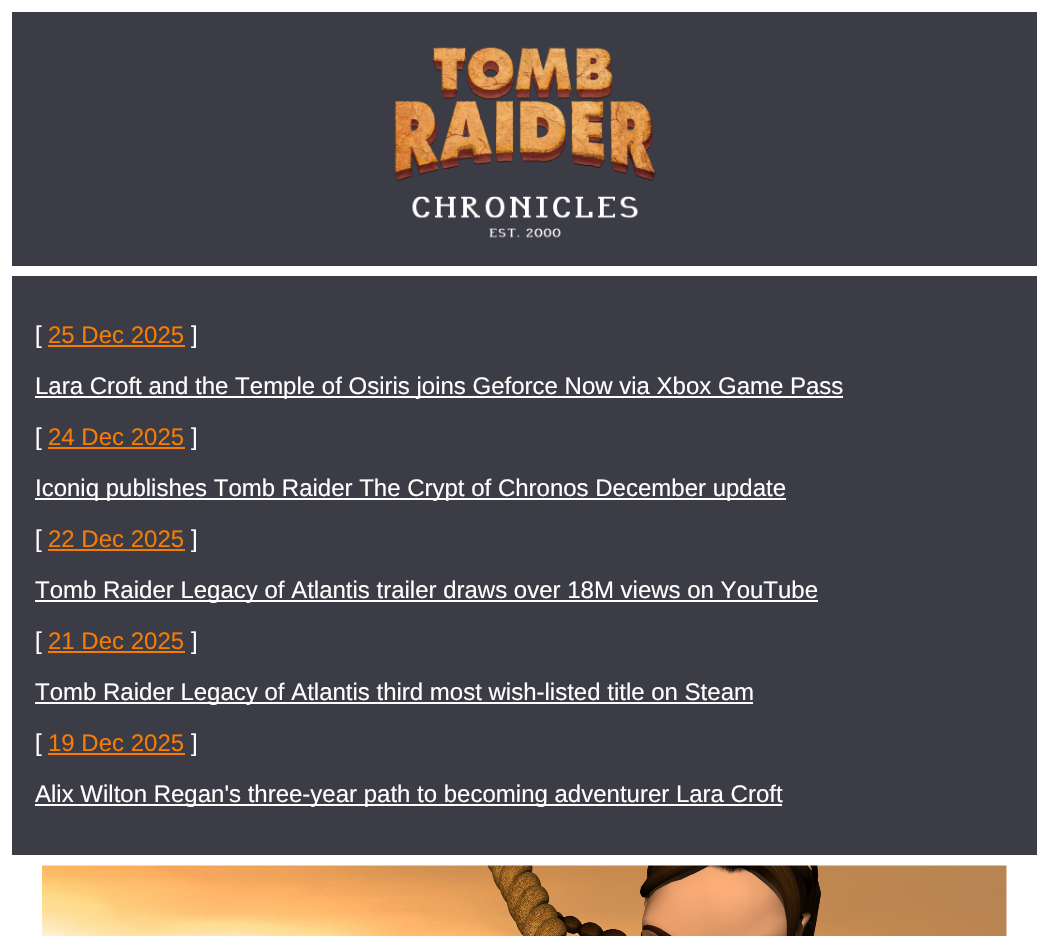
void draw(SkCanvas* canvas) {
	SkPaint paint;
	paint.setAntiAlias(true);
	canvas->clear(0xffffffff);
	paint.setColor(0xff3c3c46);
	canvas->drawRect(SkRect::MakeXYWH(12, 12, 1025, 254), paint);
	canvas->drawImageRect(SkImages::DeferredFromEncodedData(SkData::MakeFromFileName("img1.png")), SkRect::MakeXYWH(394, 47, 262, 191), SkSamplingOptions());
	canvas->drawRect(SkRect::MakeXYWH(12, 276, 1025, 579), paint);
	SkFont f1(fontMgr->matchFamilyStyle("Liberation Sans", SkFontStyle::Normal()), 24);
	f1.setSubpixel(true);
	paint.setColor(0xffffffff);
	canvas->drawString("[", 35, 343, f1, paint);
	paint.setColor(0xfff57d05);
	canvas->drawString("25 Dec 2025", 48, 343, f1, paint);
	canvas->drawRect(SkRect::MakeXYWH(48, 345, 137, 2), paint);
	paint.setColor(0xffffffff);
	canvas->drawString("]", 191, 343, f1, paint);
	canvas->drawRect(SkRect::MakeXYWH(35, 396, 808, 2), paint);
	canvas->drawString("Lara Croft and the Temple of Osiris joins Geforce Now via Xbox Game Pass", 35, 394, f1, paint);
	canvas->drawString("[", 35, 445, f1, paint);
	paint.setColor(0xfff57d05);
	canvas->drawString("24 Dec 2025", 48, 445, f1, paint);
	canvas->drawRect(SkRect::MakeXYWH(48, 447, 137, 2), paint);
	paint.setColor(0xffffffff);
	canvas->drawString("]", 191, 445, f1, paint);
	canvas->drawRect(SkRect::MakeXYWH(35, 498, 751, 2), paint);
	canvas->drawString("Iconiq publishes Tomb Raider The Crypt of Chronos December update", 35, 496, f1, paint);
	canvas->drawString("[", 35, 547, f1, paint);
	paint.setColor(0xfff57d05);
	canvas->drawString("22 Dec 2025", 48, 547, f1, paint);
	canvas->drawRect(SkRect::MakeXYWH(48, 549, 137, 2), paint);
	paint.setColor(0xffffffff);
	canvas->drawString("]", 191, 547, f1, paint);
	canvas->drawRect(SkRect::MakeXYWH(35, 600, 783, 2), paint);
	canvas->drawString("Tomb Raider Legacy of Atlantis trailer draws over 18M views on YouTube", 35, 598, f1, paint);
	canvas->drawString("[", 35, 649, f1, paint);
	paint.setColor(0xfff57d05);
	canvas->drawString("21 Dec 2025", 48, 649, f1, paint);
	canvas->drawRect(SkRect::MakeXYWH(48, 651, 137, 2), paint);
	paint.setColor(0xffffffff);
	canvas->drawString("]", 191, 649, f1, paint);
	canvas->drawRect(SkRect::MakeXYWH(35, 702, 718, 2), paint);
	canvas->drawString("Tomb Raider Legacy of Atlantis third most wish-listed title on Steam", 35, 700, f1, paint);
	canvas->drawString("[", 35, 751, f1, paint);
	paint.setColor(0xfff57d05);
	canvas->drawString("19 Dec 2025", 48, 751, f1, paint);
	canvas->drawRect(SkRect::MakeXYWH(48, 753, 137, 2), paint);
	paint.setColor(0xffffffff);
	canvas->drawString("]", 191, 751, f1, paint);
	canvas->drawRect(SkRect::MakeXYWH(35, 804, 747, 2), paint);
	canvas->drawString("Alix Wilton Regan's three-year path to becoming adventurer Lara Croft", 35, 802, f1, paint);
	canvas->drawImageRect(SkImages::DeferredFromEncodedData(SkData::MakeFromFileName("img2.png")), SkRect::MakeXYWH(42, 865, 965, 71), SkSamplingOptions());
}
